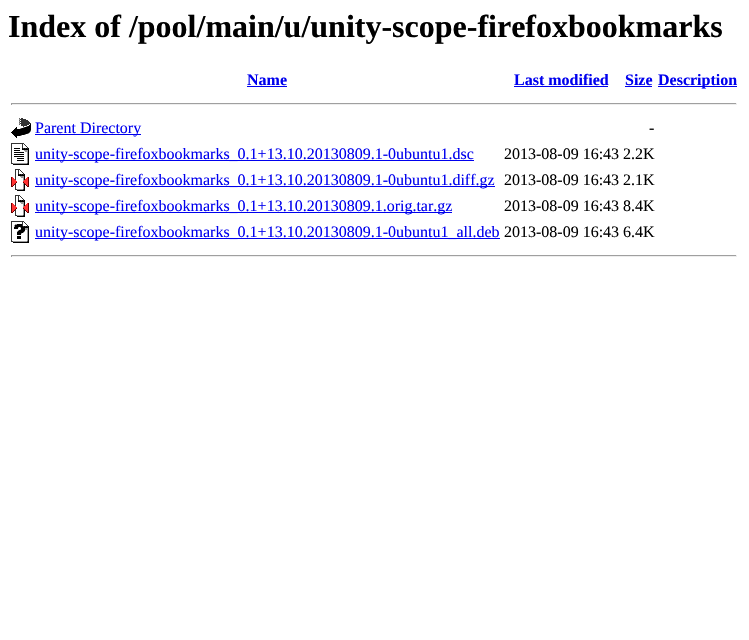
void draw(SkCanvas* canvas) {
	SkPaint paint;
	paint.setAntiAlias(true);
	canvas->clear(0xffffffff);
	SkFont f1(fontMgr->matchFamilyStyle("Liberation Serif", SkFontStyle::Bold()), 32);
	f1.setSubpixel(true);
	paint.setColor(0xff000000);
	canvas->drawString("Index of /pool/main/u/unity-scope-firefoxbookmarks", 8, 37, f1, paint);
	SkFont f2(fontMgr->matchFamilyStyle("Liberation Serif", SkFontStyle::Bold()), 16);
	f2.setSubpixel(true);
	paint.setColor(0xff0000ee);
	canvas->drawString("Name", 247, 85, f2, paint);
	canvas->drawRect(SkRect::MakeXYWH(247, 86, 40, 1), paint);
	canvas->drawString("Last modified", 514, 85, f2, paint);
	canvas->drawRect(SkRect::MakeXYWH(514, 86, 94, 1), paint);
	canvas->drawString("Size", 625, 85, f2, paint);
	canvas->drawRect(SkRect::MakeXYWH(625, 86, 27, 1), paint);
	canvas->drawRect(SkRect::MakeXYWH(658, 86, 79, 1), paint);
	canvas->drawString("Description", 658, 85, f2, paint);
	paint.setColor(0xff9f9f9f);
	canvas->drawRect(SkRect::MakeXYWH(11, 103, 726, 1), paint);
	paint.setColor(0xffeeeeee);
	canvas->drawRect(SkRect::MakeXYWH(736, 103, 1, 2), paint);
	canvas->drawRect(SkRect::MakeXYWH(11, 104, 726, 1), paint);
	paint.setColor(0xff9f9f9f);
	canvas->drawRect(SkRect::MakeXYWH(11, 103, 1, 2), paint);
	canvas->drawImageRect(SkImages::DeferredFromEncodedData(SkData::MakeFromFileName("img1.png")), SkRect::MakeXYWH(11, 118, 20, 20), SkSamplingOptions());
	paint.setColor(0xff0000ee);
	canvas->drawRect(SkRect::MakeXYWH(35, 134, 106, 1), paint);
	SkFont f3(fontMgr->matchFamilyStyle("Liberation Serif", SkFontStyle::Normal()), 16);
	f3.setSubpixel(true);
	canvas->drawString("Parent Directory", 35, 133, f3, paint);
	paint.setColor(0xff000000);
	canvas->drawString("-", 649, 133, f3, paint);
	canvas->drawImageRect(SkImages::DeferredFromEncodedData(SkData::MakeFromFileName("img2.png")), SkRect::MakeXYWH(11, 143, 18, 22), SkSamplingOptions());
	paint.setColor(0xff0000ee);
	canvas->drawRect(SkRect::MakeXYWH(35, 160, 439, 1), paint);
	canvas->drawString("unity-scope-firefoxbookmarks_0.1+13.10.20130809.1-0ubuntu1.dsc", 35, 159, f3, paint);
	paint.setColor(0xff000000);
	canvas->drawString("2013-08-09 16:43 2.2K", 504, 159, f3, paint);
	canvas->drawImageRect(SkImages::DeferredFromEncodedData(SkData::MakeFromFileName("img3.png")), SkRect::MakeXYWH(11, 169, 18, 22), SkSamplingOptions());
	paint.setColor(0xff0000ee);
	canvas->drawRect(SkRect::MakeXYWH(35, 186, 460, 1), paint);
	canvas->drawString("unity-scope-firefoxbookmarks_0.1+13.10.20130809.1-0ubuntu1.diff.gz", 35, 185, f3, paint);
	paint.setColor(0xff000000);
	canvas->drawString("2013-08-09 16:43 2.1K", 504, 185, f3, paint);
	canvas->drawImageRect(SkImages::DeferredFromEncodedData(SkData::MakeFromFileName("img3.png")), SkRect::MakeXYWH(11, 195, 18, 22), SkSamplingOptions());
	paint.setColor(0xff0000ee);
	canvas->drawRect(SkRect::MakeXYWH(35, 212, 417, 1), paint);
	canvas->drawString("unity-scope-firefoxbookmarks_0.1+13.10.20130809.1.orig.tar.gz", 35, 211, f3, paint);
	paint.setColor(0xff000000);
	canvas->drawString("2013-08-09 16:43 8.4K", 504, 211, f3, paint);
	canvas->drawImageRect(SkImages::DeferredFromEncodedData(SkData::MakeFromFileName("img4.png")), SkRect::MakeXYWH(11, 221, 18, 22), SkSamplingOptions());
	paint.setColor(0xff0000ee);
	canvas->drawRect(SkRect::MakeXYWH(35, 238, 465, 1), paint);
	canvas->drawString("unity-scope-firefoxbookmarks_0.1+13.10.20130809.1-0ubuntu1_all.deb", 35, 237, f3, paint);
	paint.setColor(0xff000000);
	canvas->drawString("2013-08-09 16:43 6.4K", 504, 237, f3, paint);
	paint.setColor(0xff9f9f9f);
	canvas->drawRect(SkRect::MakeXYWH(11, 255, 726, 1), paint);
	paint.setColor(0xffeeeeee);
	canvas->drawRect(SkRect::MakeXYWH(736, 255, 1, 2), paint);
	canvas->drawRect(SkRect::MakeXYWH(11, 256, 726, 1), paint);
	paint.setColor(0xff9f9f9f);
	canvas->drawRect(SkRect::MakeXYWH(11, 255, 1, 2), paint);
}
